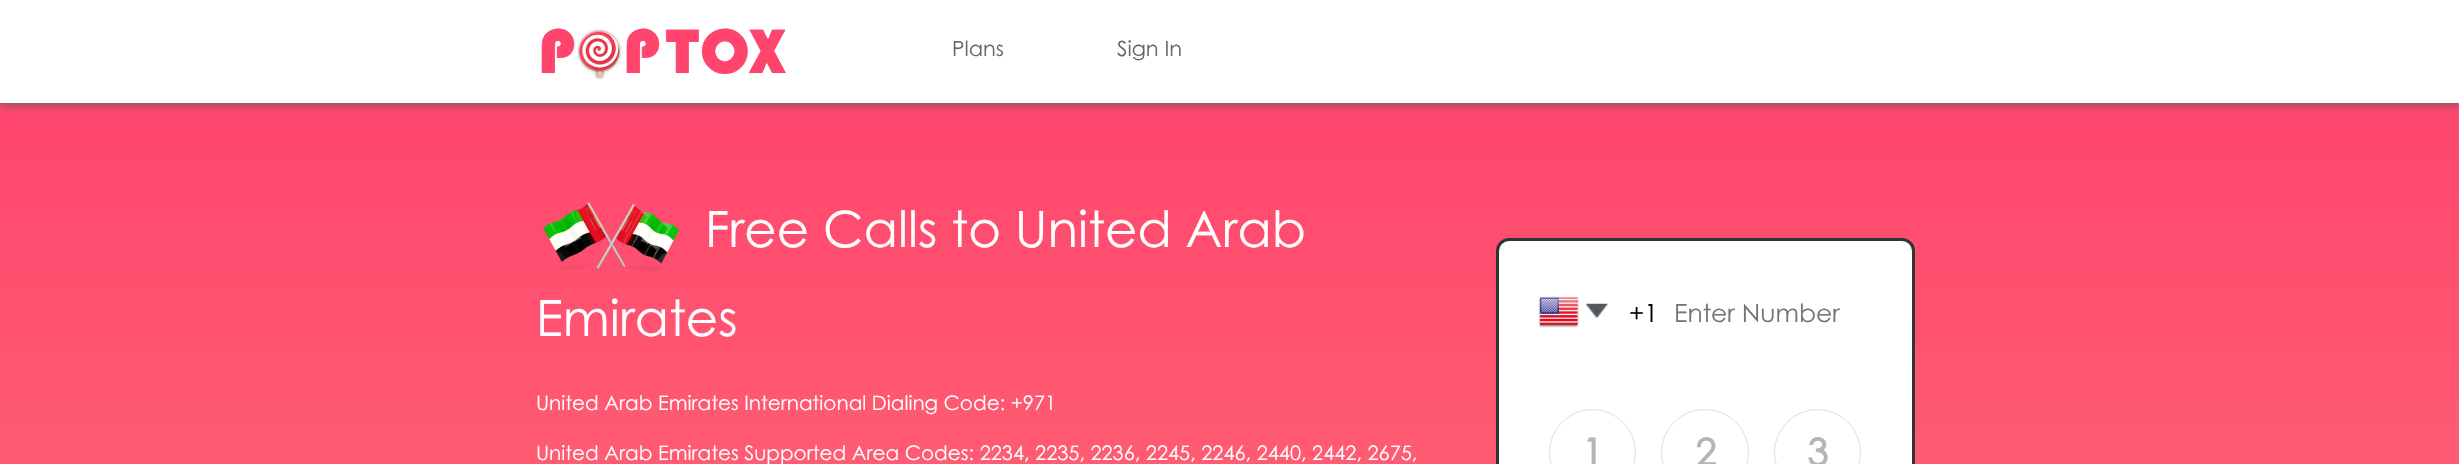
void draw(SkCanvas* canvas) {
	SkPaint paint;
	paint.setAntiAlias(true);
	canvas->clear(0xffffffff);
	{
		const SkColor colors[] = {0xffff456e, 0xffff887a};
		const float stops[] = {0, 1};
		const SkPoint ends[] = {{1230, 102}, {1230, 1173}};
		paint.setShader(SkGradientShader::MakeLinear(ends, colors, stops, 2, SkTileMode::kClamp));
		paint.setAlpha(255);
	}
	canvas->drawRect(SkRect::MakeXYWH(0, 103, 2459, 361), paint);
	paint.setShader(nullptr);
	paint.setColor(0xff5d5d5d);
	paint.setMaskFilter(SkMaskFilter::MakeBlur(kNormal_SkBlurStyle, 4.5));
	canvas->drawRect(SkRect::MakeXYWH(0, 1, 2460, 103), paint);
	paint.setMaskFilter(nullptr);
	paint.setColor(0xffffffff);
	canvas->drawRect(SkRect::MakeXYWH(0, 0, 2459, 103), paint);
	canvas->drawImageRect(SkImages::DeferredFromEncodedData(SkData::MakeFromFileName("img1.png")), SkRect::MakeXYWH(541, 28, 245, 52), SkSamplingOptions());
	SkFont f1(fontMgr->matchFamilyStyle("Century Gothic", SkFontStyle::Normal()), 21);
	f1.setSubpixel(true);
	paint.setColor(0xff666666);
	canvas->drawString("Plans", 952, 56, f1, paint);
	canvas->drawString("Sign In", 1117, 56, f1, paint);
	canvas->drawImageRect(SkImages::DeferredFromEncodedData(SkData::MakeFromFileName("img2.png")), SkRect::MakeXYWH(543, 202, 137, 70), SkSamplingOptions());
	SkFont f2(fontMgr->matchFamilyStyle("Century Gothic", SkFontStyle::Normal()), 50);
	f2.setSubpixel(true);
	paint.setColor(0xffffffff);
	canvas->drawString("Free Calls to United Arab", 705, 247, f2, paint);
	canvas->drawString("Emirates", 536, 336, f2, paint);
	SkFont f3(fontMgr->matchFamilyStyle("Century Gothic", SkFontStyle::Normal()), 20);
	f3.setSubpixel(true);
	canvas->drawString("United Arab Emirates International Dialing Code: +971", 536, 410, f3, paint);
	canvas->drawString("United Arab Emirates Supported Area Codes: 2234, 2235, 2236, 2245, 2246, 2440, 2442, 2675,", 536, 460, f3, paint);
	canvas->drawRoundRect(SkRect::MakeXYWH(1497.5, 239.5, 416, 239), 11.5, 11.5, paint);
	paint.setStroke(true);
	paint.setStrokeWidth(3);
	paint.setColor(0xff333333);
	canvas->drawRoundRect(SkRect::MakeXYWH(1497.5, 239.5, 416, 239), 11.5, 11.5, paint);
	canvas->drawImageRect(SkImages::DeferredFromEncodedData(SkData::MakeFromFileName("img3.png")), SkRect::MakeXYWH(1538, 296, 70, 32), SkSamplingOptions());
	SkFont f4(fontMgr->matchFamilyStyle("Century Gothic", SkFontStyle::Normal()), 25);
	f4.setSubpixel(true);
	paint.setStroke(false);
	paint.setColor(0xff000000);
	canvas->drawString("+1", 1629, 322, f4, paint);
	paint.setColor(0xff757575);
	canvas->drawString("Enter Number", 1674, 322, f4, paint);
	paint.setStroke(true);
	paint.setStrokeWidth(1);
	paint.setColor(0xffdedede);
	canvas->drawCircle(1592.5, 452.5, 43, paint);
	SkFont f5(fontMgr->matchFamilyStyle("Century Gothic", SkFontStyle::Bold()), 38);
	f5.setSubpixel(true);
	paint.setStroke(false);
	paint.setColor(0xffb5b5b5);
	canvas->drawString("1", 1582, 466, f5, paint);
	paint.setStroke(true);
	paint.setColor(0xffdedede);
	canvas->drawRoundRect(SkRect::MakeXYWH(1661.5, 409.5, 87, 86), 43, 43, paint);
	paint.setStroke(false);
	paint.setColor(0xffb5b5b5);
	canvas->drawString("2", 1695, 466, f5, paint);
	paint.setStroke(true);
	paint.setColor(0xffdedede);
	canvas->drawCircle(1817.5, 452.5, 43, paint);
	paint.setStroke(false);
	paint.setColor(0xffb5b5b5);
	canvas->drawString("3", 1807, 466, f5, paint);
}
